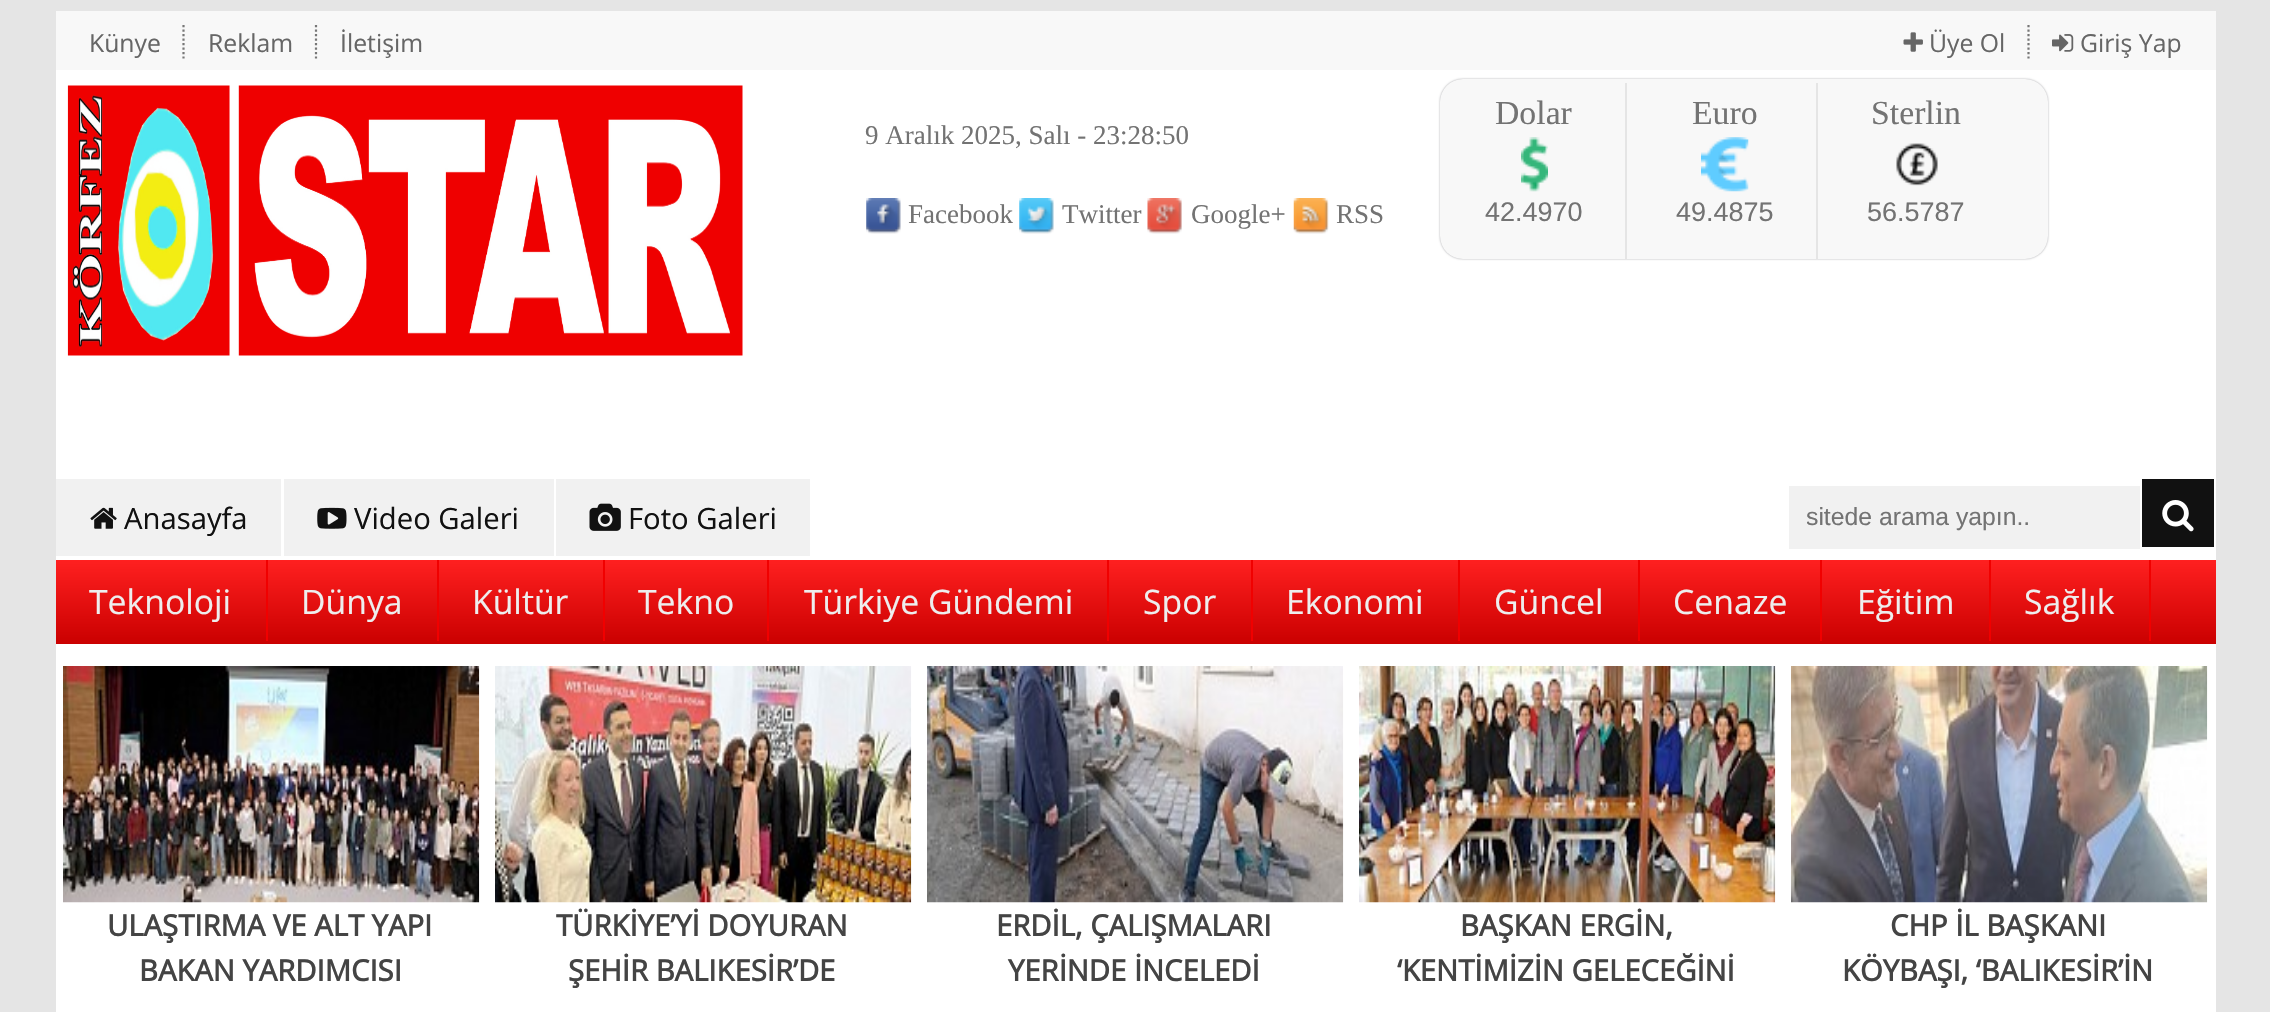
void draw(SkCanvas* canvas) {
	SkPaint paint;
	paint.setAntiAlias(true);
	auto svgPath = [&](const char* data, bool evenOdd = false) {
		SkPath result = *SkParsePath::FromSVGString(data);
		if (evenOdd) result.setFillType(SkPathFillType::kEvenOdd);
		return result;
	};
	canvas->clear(0xffe5e5e5);
	paint.setColor(0xffffffff);
	canvas->drawRect(SkRect::MakeXYWH(56, 70, 2160, 942), paint);
	paint.setColor(0xfff8f8f8);
	canvas->drawRect(SkRect::MakeXYWH(56, 11, 2160, 59), paint);
	SkFont f1(fontMgr->matchFamilyStyle("Open Sans", SkFontStyle::Normal()), 24.75);
	f1.setSubpixel(true);
	paint.setColor(0xff666666);
	canvas->drawString("Künye", 89, 52, f1, paint);
	paint.setStroke(true);
	paint.setStrokeWidth(2.2);
	paint.setColor(0xff777777);
	paint.setPathEffect(SkDashPathEffect::Make({{2.25f, 2.25f}}, 0));
	canvas->drawPath(svgPath("M183.5 25V58.5"), paint);
	paint.setPathEffect(nullptr);
	paint.setStroke(false);
	paint.setColor(0xff666666);
	canvas->drawString("Reklam", 208, 52, f1, paint);
	paint.setStroke(true);
	paint.setColor(0xff777777);
	paint.setPathEffect(SkDashPathEffect::Make({{2.25f, 2.25f}}, 0));
	canvas->drawPath(svgPath("M316 25V58.5"), paint);
	paint.setPathEffect(nullptr);
	paint.setStroke(false);
	paint.setColor(0xff666666);
	canvas->drawString("İletişim", 340, 52, f1, paint);
	paint.setStroke(true);
	paint.setColor(0xff777777);
	paint.setPathEffect(SkDashPathEffect::Make({{2.25f, 2.25f}}, 0));
	canvas->drawPath(svgPath("M2028.5 25V58.5"), paint);
	paint.setPathEffect(nullptr);
	canvas->drawImageRect(SkImages::DeferredFromEncodedData(SkData::MakeFromFileName("img1.png")), SkRect::MakeXYWH(1903, 32, 20, 20), SkSamplingOptions());
	paint.setStroke(false);
	paint.setColor(0xff666666);
	canvas->drawString("Üye Ol", 1929, 52, f1, paint);
	canvas->drawImageRect(SkImages::DeferredFromEncodedData(SkData::MakeFromFileName("img2.png")), SkRect::MakeXYWH(2052, 34, 22, 18), SkSamplingOptions());
	canvas->drawString("Giriş Yap", 2080, 52, f1, paint);
	canvas->drawImageRect(SkImages::DeferredFromEncodedData(SkData::MakeFromFileName("img3.png")), SkRect::MakeXYWH(67, 85, 676, 271), SkSamplingOptions());
	SkFont f2(fontMgr->matchFamilyStyle("Liberation Serif", SkFontStyle::Normal()), 27);
	f2.setSubpixel(true);
	paint.setColor(0xff737373);
	canvas->drawString("9 Aralık 2025, Salı - 23:28:50", 865, 144, f2, paint);
	canvas->drawImageRect(SkImages::DeferredFromEncodedData(SkData::MakeFromFileName("img4.png")), SkRect::MakeXYWH(866, 198, 35, 36), SkSamplingOptions());
	canvas->drawString("Facebook", 908, 223, f2, paint);
	canvas->drawImageRect(SkImages::DeferredFromEncodedData(SkData::MakeFromFileName("img5.png")), SkRect::MakeXYWH(1019, 198, 35, 36), SkSamplingOptions());
	canvas->drawString("Twitter", 1062, 223, f2, paint);
	canvas->drawImageRect(SkImages::DeferredFromEncodedData(SkData::MakeFromFileName("img6.png")), SkRect::MakeXYWH(1147, 198, 35, 36), SkSamplingOptions());
	canvas->drawString("Google+", 1191, 223, f2, paint);
	canvas->drawImageRect(SkImages::DeferredFromEncodedData(SkData::MakeFromFileName("img7.png")), SkRect::MakeXYWH(1293, 198, 36, 36), SkSamplingOptions());
	canvas->drawString("RSS", 1336, 223, f2, paint);
	paint.setColor(0xffa3a3a7);
	paint.setMaskFilter(SkMaskFilter::MakeBlur(kNormal_SkBlurStyle, 1));
	canvas->drawRoundRect(SkRect::MakeXYWH(1440, 79, 608, 180), 23, 23, paint);
	paint.setMaskFilter(nullptr);
	paint.setColor(0xfff8f8f8);
	canvas->drawRoundRect(SkRect::MakeXYWH(1440, 79, 608, 180), 23, 23, paint);
	paint.setColor(0xffe5e5e5);
	canvas->drawRect(SkRect::MakeXYWH(1625, 83, 2, 176), paint);
	SkFont f3(fontMgr->matchFamilyStyle("Liberation Serif", SkFontStyle::Normal()), 33.75);
	f3.setSubpixel(true);
	paint.setColor(0xff737373);
	canvas->drawString("Dolar", 1495, 124, f3, paint);
	canvas->drawImageRect(SkImages::DeferredFromEncodedData(SkData::MakeFromFileName("img8.png")), SkRect::MakeXYWH(1521, 137, 27, 55), SkSamplingOptions());
	SkFont f4(fontMgr->matchFamilyStyle("Liberation Sans", SkFontStyle::Normal()), 27);
	f4.setSubpixel(true);
	canvas->drawString("42.4970", 1485, 221, f4, paint);
	paint.setColor(0xffe5e5e5);
	canvas->drawRect(SkRect::MakeXYWH(1816, 83, 2, 176), paint);
	paint.setColor(0xff737373);
	canvas->drawString("Euro", 1692, 124, f3, paint);
	canvas->drawImageRect(SkImages::DeferredFromEncodedData(SkData::MakeFromFileName("img9.png")), SkRect::MakeXYWH(1701, 137, 48, 55), SkSamplingOptions());
	canvas->drawString("49.4875", 1676, 221, f4, paint);
	canvas->drawString("Sterlin", 1871, 124, f3, paint);
	canvas->drawImageRect(SkImages::DeferredFromEncodedData(SkData::MakeFromFileName("img10.png")), SkRect::MakeXYWH(1896, 143, 42, 43), SkSamplingOptions());
	canvas->drawString("56.5787", 1867, 221, f4, paint);
	paint.setColor(0xfff1f1f1);
	canvas->drawRect(SkRect::MakeXYWH(56, 479, 225, 77), paint);
	canvas->drawImageRect(SkImages::DeferredFromEncodedData(SkData::MakeFromFileName("img11.png")), SkRect::MakeXYWH(90, 507, 27, 22), SkSamplingOptions());
	SkFont f5(fontMgr->matchFamilyStyle("Open Sans", SkFontStyle::Normal()), 29.25);
	f5.setSubpixel(true);
	paint.setColor(0xff111111);
	canvas->drawString("Anasayfa", 124, 529, f5, paint);
	paint.setColor(0xfff1f1f1);
	canvas->drawRect(SkRect::MakeXYWH(284, 479, 270, 77), paint);
	canvas->drawImageRect(SkImages::DeferredFromEncodedData(SkData::MakeFromFileName("img12.png")), SkRect::MakeXYWH(317, 507, 30, 22), SkSamplingOptions());
	paint.setColor(0xff111111);
	canvas->drawString("Video Galeri", 354, 529, f5, paint);
	paint.setColor(0xfff1f1f1);
	canvas->drawRect(SkRect::MakeXYWH(556, 479, 254, 77), paint);
	canvas->drawImageRect(SkImages::DeferredFromEncodedData(SkData::MakeFromFileName("img13.png")), SkRect::MakeXYWH(589, 503, 32, 28), SkSamplingOptions());
	paint.setColor(0xff111111);
	canvas->drawString("Foto Galeri", 628, 529, f5, paint);
	paint.setColor(0xfff1f1f1);
	canvas->drawRect(SkRect::MakeXYWH(1789, 486, 351, 63), paint);
	canvas->save();
	canvas->clipRect(SkRect::MakeXYWH(1807, 504, 315, 27));
	SkFont f6(fontMgr->matchFamilyStyle("Liberation Sans", SkFontStyle::Normal()), 24.75);
	f6.setSubpixel(true);
	paint.setColor(0xff737373);
	canvas->drawString("sitede arama yapın..", 1806, 525, f6, paint);
	canvas->restore();
	paint.setColor(0xff111111);
	canvas->drawRect(SkRect::MakeXYWH(2142, 479, 72, 68), paint);
	canvas->drawImageRect(SkImages::DeferredFromEncodedData(SkData::MakeFromFileName("img14.png")), SkRect::MakeXYWH(2162, 500, 32, 32), SkSamplingOptions());
	{
		const SkColor colors[] = {0xffff2020, 0xffca0000};
		const float stops[] = {0, 1};
		const SkPoint ends[] = {{1136, 560}, {1136, 644}};
		paint.setShader(SkGradientShader::MakeLinear(ends, colors, stops, 2, SkTileMode::kClamp));
		paint.setAlpha(255);
	}
	canvas->drawRect(SkRect::MakeXYWH(56, 560, 2160, 84), paint);
	paint.setShader(nullptr);
	paint.setColor(0xfff10000);
	canvas->drawRect(SkRect::MakeXYWH(266, 560, 2, 81), paint);
	SkFont f7(fontMgr->matchFamilyStyle("Open Sans", SkFontStyle::Normal()), 33.75);
	f7.setSubpixel(true);
	paint.setColor(0xffeeeeee);
	canvas->drawString("Teknoloji", 89, 614, f7, paint);
	paint.setColor(0xfff10000);
	canvas->drawRect(SkRect::MakeXYWH(437, 560, 2, 81), paint);
	paint.setColor(0xffeeeeee);
	canvas->drawString("Dünya", 301, 614, f7, paint);
	paint.setColor(0xfff10000);
	canvas->drawRect(SkRect::MakeXYWH(603, 560, 2, 81), paint);
	paint.setColor(0xffeeeeee);
	canvas->drawString("Kültür", 472, 614, f7, paint);
	paint.setColor(0xfff10000);
	canvas->drawRect(SkRect::MakeXYWH(767, 560, 2, 81), paint);
	paint.setColor(0xffeeeeee);
	canvas->drawString("Tekno", 638, 614, f7, paint);
	paint.setColor(0xfff10000);
	canvas->drawRect(SkRect::MakeXYWH(1107, 560, 2, 81), paint);
	paint.setColor(0xffeeeeee);
	canvas->drawString("Türkiye Gündemi", 804, 614, f7, paint);
	paint.setColor(0xfff10000);
	canvas->drawRect(SkRect::MakeXYWH(1251, 560, 2, 81), paint);
	paint.setColor(0xffeeeeee);
	canvas->drawString("Spor", 1143, 614, f7, paint);
	paint.setColor(0xfff10000);
	canvas->drawRect(SkRect::MakeXYWH(1458, 560, 2, 81), paint);
	paint.setColor(0xffeeeeee);
	canvas->drawString("Ekonomi", 1286, 614, f7, paint);
	paint.setColor(0xfff10000);
	canvas->drawRect(SkRect::MakeXYWH(1638, 560, 2, 81), paint);
	paint.setColor(0xffeeeeee);
	canvas->drawString("Güncel", 1494, 614, f7, paint);
	paint.setColor(0xfff10000);
	canvas->drawRect(SkRect::MakeXYWH(1820, 560, 2, 81), paint);
	paint.setColor(0xffeeeeee);
	canvas->drawString("Cenaze", 1673, 614, f7, paint);
	paint.setColor(0xfff10000);
	canvas->drawRect(SkRect::MakeXYWH(1989, 560, 2, 81), paint);
	paint.setColor(0xffeeeeee);
	canvas->drawString("Eğitim", 1857, 614, f7, paint);
	paint.setColor(0xfff10000);
	canvas->drawRect(SkRect::MakeXYWH(2149, 560, 2, 81), paint);
	paint.setColor(0xffeeeeee);
	canvas->drawString("Sağlık", 2024, 614, f7, paint);
	canvas->drawImageRect(SkImages::DeferredFromEncodedData(SkData::MakeFromFileName("img15.png")), SkRect::MakeXYWH(63, 666, 417, 237), SkSamplingOptions());
	SkFont f8(fontMgr->matchFamilyStyle("Open Sans", SkFontStyle::Bold()), 29.25);
	f8.setSubpixel(true);
	paint.setColor(0xff444444);
	canvas->drawString("ULAŞTIRMA VE ALT YAPI", 107, 936, f8, paint);
	canvas->drawString("BAKAN YARDIMCISI", 139, 981, f8, paint);
	canvas->drawImageRect(SkImages::DeferredFromEncodedData(SkData::MakeFromFileName("img16.png")), SkRect::MakeXYWH(495, 666, 417, 237), SkSamplingOptions());
	canvas->drawString("TÜRKİYE’Yİ DOYURAN", 556, 936, f8, paint);
	canvas->drawString("ŞEHİR BALIKESİR’DE", 568, 981, f8, paint);
	canvas->drawImageRect(SkImages::DeferredFromEncodedData(SkData::MakeFromFileName("img17.png")), SkRect::MakeXYWH(927, 666, 417, 237), SkSamplingOptions());
	canvas->drawString("ERDİL, ÇALIŞMALARI", 996, 936, f8, paint);
	canvas->drawString("YERİNDE İNCELEDİ", 1008, 981, f8, paint);
	canvas->drawImageRect(SkImages::DeferredFromEncodedData(SkData::MakeFromFileName("img18.png")), SkRect::MakeXYWH(1359, 666, 417, 237), SkSamplingOptions());
	canvas->drawString("BAŞKAN ERGİN,", 1460, 936, f8, paint);
	canvas->drawString("‘KENTİMİZİN GELECEĞİNİ", 1397, 981, f8, paint);
	canvas->drawImageRect(SkImages::DeferredFromEncodedData(SkData::MakeFromFileName("img19.png")), SkRect::MakeXYWH(1791, 666, 417, 237), SkSamplingOptions());
	canvas->drawString("CHP İL BAŞKANI", 1890, 936, f8, paint);
	canvas->drawString("KÖYBAŞI, ‘BALIKESİR’İN", 1842, 981, f8, paint);
}
